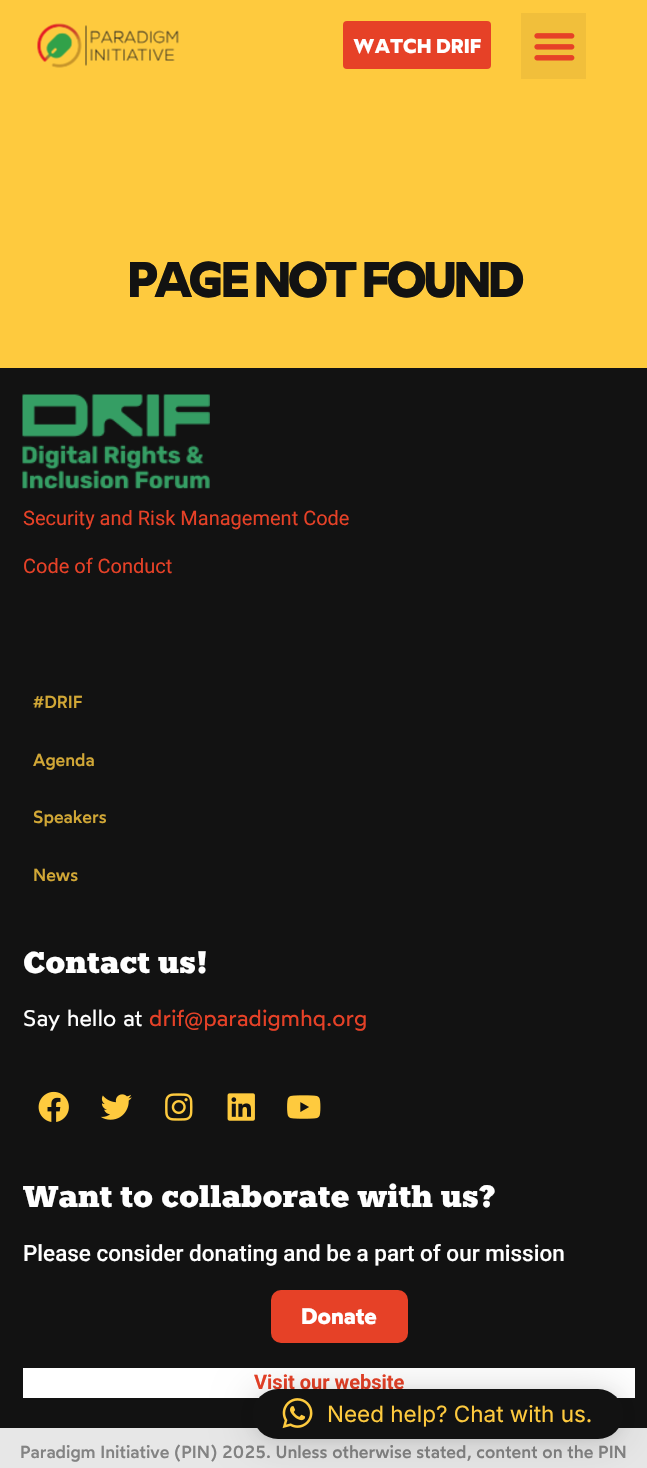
void draw(SkCanvas* canvas) {
	SkPaint paint;
	paint.setAntiAlias(true);
	auto spacedText = [&](const char* s, float x, float y, const SkFont& font, const SkPaint& ink, float letter, float word) {
		std::vector<SkGlyphID> glyphs(font.countText(s, strlen(s), SkTextEncoding::kUTF8));
		std::vector<float> xs(glyphs.size());
		font.textToGlyphs(s, strlen(s), SkTextEncoding::kUTF8, glyphs);
		font.getXPos(glyphs, xs, x);
		float extra = 0;
		for (size_t i = 0; i < glyphs.size(); i++) {
			xs[i] += extra;
			extra += letter + word * (glyphs[i] == font.unicharToGlyph(' '));
		}
		canvas->drawTextBlob(SkTextBlob::MakeFromPosHGlyphs(glyphs, xs, y, font), 0, 0, ink);
	};
	canvas->clear(0xfffeca3e);
	canvas->drawImageRect(SkImages::DeferredFromEncodedData(SkData::MakeFromFileName("img1.png")), SkRect::MakeXYWH(37, 23, 142, 45), SkSamplingOptions());
	paint.setColor(0xffe64127);
	canvas->drawRoundRect(SkRect::MakeXYWH(343, 21, 148, 48), 4, 4, paint);
	SkFont f1(fontMgr->matchFamilyStyle("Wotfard", SkFontStyle::Bold()), 20);
	f1.setSubpixel(true);
	paint.setColor(0xffffffff);
	canvas->drawString("WATCH DRIF", 353, 53, f1, paint);
	paint.setColor(0x0d000000);
	canvas->drawRect(SkRect::MakeXYWH(521, 13, 65, 66), paint);
	canvas->drawImageRect(SkImages::DeferredFromEncodedData(SkData::MakeFromFileName("img2.png")), SkRect::MakeXYWH(534, 33, 41, 28), SkSamplingOptions());
	SkFont f2(fontMgr->matchFamilyStyle("Wotfard", SkFontStyle::Bold()), 50);
	f2.setSubpixel(true);
	paint.setColor(0xff121212);
	spacedText("PAGE NOT FOUND", 127, 297, f2, paint, -3.75, 0);
	canvas->drawRect(SkRect::MakeXYWH(0, 368, 647, 1060), paint);
	canvas->drawImageRect(SkImages::DeferredFromEncodedData(SkData::MakeFromFileName("img3.png")), SkRect::MakeXYWH(22, 394, 188, 95), SkSamplingOptions());
	SkFont f3(fontMgr->matchFamilyStyle("Roboto", SkFontStyle::Normal()), 20);
	f3.setSubpixel(true);
	paint.setColor(0xffe64127);
	canvas->drawString("Security and Risk Management Code", 23, 525, f3, paint);
	canvas->drawString("Code of Conduct", 23, 573, f3, paint);
	SkFont f4(fontMgr->matchFamilyStyle("Wotfard", SkFontStyle(500, SkFontStyle::kNormal_Width, SkFontStyle::kUpright_Slant)), 17.5);
	f4.setSubpixel(true);
	paint.setColor(0xffd1a736);
	canvas->drawString("#DRIF", 33, 708, f4, paint);
	canvas->drawString("Agenda", 33, 766, f4, paint);
	canvas->drawString("Speakers", 33, 823, f4, paint);
	canvas->drawString("News", 33, 881, f4, paint);
	SkFont f5(fontMgr->matchFamilyStyle("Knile", SkFontStyle(900, SkFontStyle::kNormal_Width, SkFontStyle::kUpright_Slant)), 30);
	f5.setSubpixel(true);
	paint.setColor(0xffffffff);
	canvas->drawString("Contact us!", 23, 973, f5, paint);
	SkFont f6(fontMgr->matchFamilyStyle("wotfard", SkFontStyle::Normal()), 22.5);
	f6.setSubpixel(true);
	canvas->drawString("Say hello at", 23, 1026, f6, paint);
	paint.setColor(0xffe64127);
	canvas->drawString("drif@paradigmhq.org", 149, 1026, f6, paint);
	canvas->drawImageRect(SkImages::DeferredFromEncodedData(SkData::MakeFromFileName("img4.png")), SkRect::MakeXYWH(38, 1091, 31, 31), SkSamplingOptions());
	canvas->drawImageRect(SkImages::DeferredFromEncodedData(SkData::MakeFromFileName("img5.png")), SkRect::MakeXYWH(100, 1094, 32, 26), SkSamplingOptions());
	canvas->drawImageRect(SkImages::DeferredFromEncodedData(SkData::MakeFromFileName("img6.png")), SkRect::MakeXYWH(165, 1093, 28, 28), SkSamplingOptions());
	canvas->drawImageRect(SkImages::DeferredFromEncodedData(SkData::MakeFromFileName("img7.png")), SkRect::MakeXYWH(227, 1093, 28, 28), SkSamplingOptions());
	canvas->drawImageRect(SkImages::DeferredFromEncodedData(SkData::MakeFromFileName("img8.png")), SkRect::MakeXYWH(287, 1095, 34, 24), SkSamplingOptions());
	paint.setColor(0xffffffff);
	canvas->drawString("Want to collaborate with us?", 23, 1207, f5, paint);
	SkFont f7(fontMgr->matchFamilyStyle("Roboto", SkFontStyle(500, SkFontStyle::kNormal_Width, SkFontStyle::kUpright_Slant)), 22.5);
	f7.setSubpixel(true);
	canvas->drawString("Please consider donating and be a part of our mission", 23, 1261, f7, paint);
	paint.setColor(0xffe64127);
	canvas->drawRoundRect(SkRect::MakeXYWH(271, 1290, 137, 53), 10, 10, paint);
	SkFont f8(fontMgr->matchFamilyStyle("Wotfard", SkFontStyle::Bold()), 22.5);
	f8.setSubpixel(true);
	paint.setColor(0xffffffff);
	canvas->drawString("Donate", 301, 1324, f8, paint);
	canvas->drawRect(SkRect::MakeXYWH(23, 1368, 612, 30), paint);
	SkFont f9(fontMgr->matchFamilyStyle("Roboto", SkFontStyle::Bold()), 20);
	f9.setSubpixel(true);
	paint.setColor(0xffe64127);
	canvas->drawString("Visit our website", 254, 1389, f9, paint);
	paint.setColor(0xffe7e7e7);
	canvas->drawRect(SkRect::MakeXYWH(0, 1428, 647, 40), paint);
	paint.setColor(0xff838383);
	canvas->drawString("Paradigm Initiative (PIN) 2025. Unless otherwise stated, content on the PIN", 20, 1458, f4, paint);
	paint.setColor(0x29000000);
	paint.setMaskFilter(SkMaskFilter::MakeBlur(kNormal_SkBlurStyle, 20));
	canvas->drawRoundRect(SkRect::MakeXYWH(253, 1391, 370, 50), 25, 25, paint);
	paint.setMaskFilter(nullptr);
	paint.setColor(0x0f000000);
	paint.setMaskFilter(SkMaskFilter::MakeBlur(kNormal_SkBlurStyle, 4));
	canvas->drawRoundRect(SkRect::MakeXYWH(253, 1390, 370, 50), 25, 25, paint);
	paint.setMaskFilter(nullptr);
	paint.setColor(0xff121212);
	canvas->drawRoundRect(SkRect::MakeXYWH(253, 1389, 370, 50), 25, 25, paint);
	canvas->drawImageRect(SkImages::DeferredFromEncodedData(SkData::MakeFromFileName("img9.png")), SkRect::MakeXYWH(282, 1398, 31, 31), SkSamplingOptions());
	SkFont f10(fontMgr->matchFamilyStyle("Inter", SkFontStyle::Normal()), 22.5);
	f10.setSubpixel(true);
	paint.setColor(0xfffeca3e);
	canvas->drawString("Need help? Chat with us.", 327, 1422, f10, paint);
}
